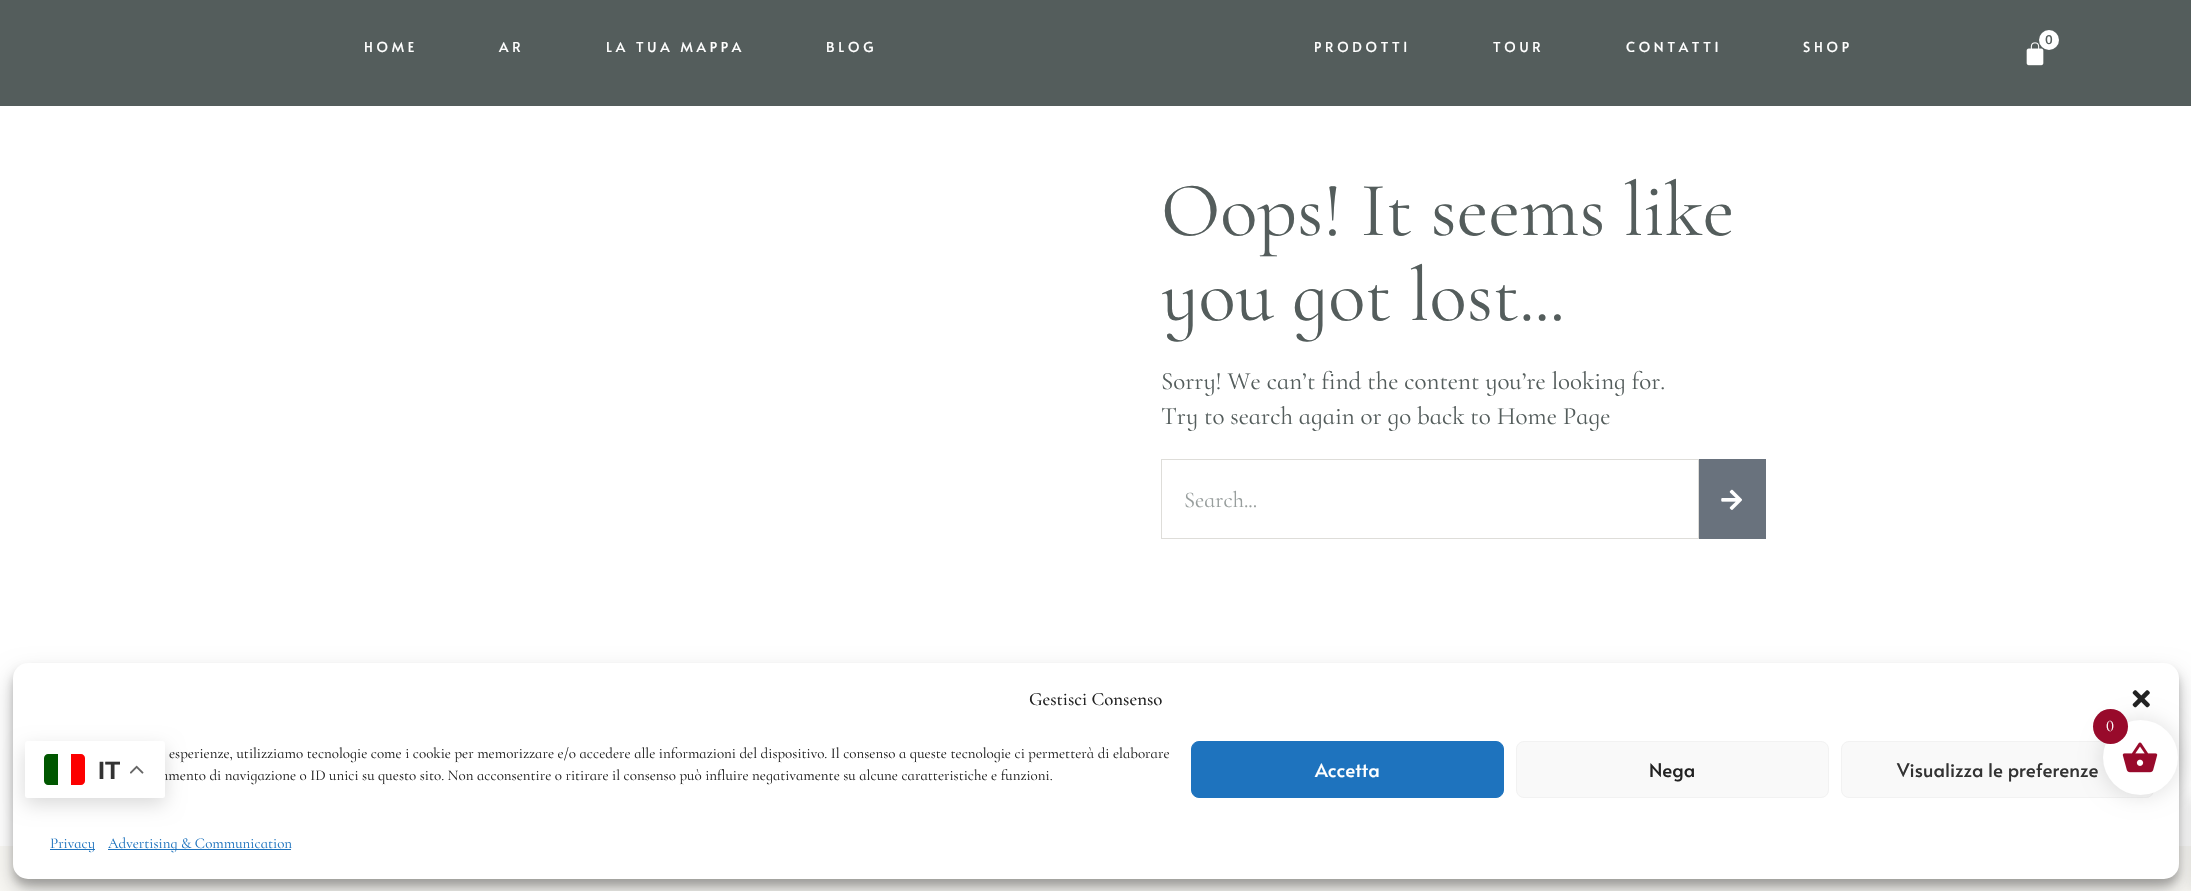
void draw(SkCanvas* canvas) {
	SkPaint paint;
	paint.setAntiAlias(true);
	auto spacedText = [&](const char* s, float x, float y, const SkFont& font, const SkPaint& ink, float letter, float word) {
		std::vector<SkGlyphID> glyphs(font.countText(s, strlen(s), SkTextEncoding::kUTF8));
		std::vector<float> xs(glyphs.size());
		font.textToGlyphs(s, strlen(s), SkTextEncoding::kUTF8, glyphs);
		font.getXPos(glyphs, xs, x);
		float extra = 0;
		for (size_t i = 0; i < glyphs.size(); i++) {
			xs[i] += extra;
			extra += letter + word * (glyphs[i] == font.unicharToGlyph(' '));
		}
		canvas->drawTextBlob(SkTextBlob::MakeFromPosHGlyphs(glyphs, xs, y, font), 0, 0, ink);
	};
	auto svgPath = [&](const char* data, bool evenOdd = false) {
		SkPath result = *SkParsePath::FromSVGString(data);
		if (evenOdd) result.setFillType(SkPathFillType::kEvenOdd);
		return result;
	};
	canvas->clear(0xffffffff);
	paint.setColor(0xff545d5c);
	canvas->drawRect(SkRect::MakeXYWH(0, 0, 2191, 106), paint);
	canvas->drawImageRect(SkImages::DeferredFromEncodedData(SkData::MakeFromFileName("img1.png")), SkRect::MakeXYWH(2026, 42, 18, 24), SkSamplingOptions());
	paint.setColor(0xffffffff);
	canvas->drawCircle(2049, 40, 10, paint);
	SkFont f1(fontMgr->matchFamilyStyle("Alata", SkFontStyle::Normal()), 12);
	f1.setSubpixel(true);
	paint.setColor(0xff545d5c);
	canvas->drawString("0", 2045, 44, f1, paint);
	SkFont f2(fontMgr->matchFamilyStyle("Alata", SkFontStyle::Normal()), 13.75);
	f2.setSubpixel(true);
	paint.setColor(0xffffffff);
	spacedText("HOME", 364, 52, f2, paint, 3.75, 0);
	spacedText("AR", 499, 52, f2, paint, 3.75, 0);
	spacedText("LA TUA MAPPA", 606, 52, f2, paint, 3.75, 0);
	spacedText("BLOG", 826, 52, f2, paint, 3.75, 0);
	spacedText("PRODOTTI", 1314, 52, f2, paint, 3.75, 0);
	spacedText("TOUR", 1493, 52, f2, paint, 3.75, 0);
	spacedText("CONTATTI", 1626, 52, f2, paint, 3.75, 0);
	spacedText("SHOP", 1803, 52, f2, paint, 3.75, 0);
	SkFont f3(fontMgr->matchFamilyStyle("Cormorant Infant", SkFontStyle::Normal()), 77.5);
	f3.setSubpixel(true);
	paint.setColor(0xff545d5c);
	canvas->drawString("Oops! It seems like", 1161, 235, f3, paint);
	canvas->drawString("you got lost...", 1161, 320, f3, paint);
	SkFont f4(fontMgr->matchFamilyStyle("Cormorant Infant", SkFontStyle::Normal()), 25);
	f4.setSubpixel(true);
	canvas->drawString("Sorry! We can’t find the content you’re looking for.", 1161, 389, f4, paint);
	canvas->drawString("Try to search again or go back to Home Page", 1161, 424, f4, paint);
	paint.setStroke(true);
	paint.setStrokeWidth(1);
	paint.setColor(0xffdeddd9);
	canvas->drawRect(SkRect::MakeXYWH(1161.5, 459.5, 537, 79), paint);
	SkFont f5(fontMgr->matchFamilyStyle("Cormorant Infant", SkFontStyle::Normal()), 22.5);
	f5.setSubpixel(true);
	paint.setStroke(false);
	paint.setColor(0xff989e9d);
	canvas->drawString("Search...", 1184, 507, f5, paint);
	paint.setColor(0xff69727d);
	canvas->drawRect(SkRect::MakeXYWH(1699, 459, 67, 80), paint);
	canvas->drawImageRect(SkImages::DeferredFromEncodedData(SkData::MakeFromFileName("img2.png")), SkRect::MakeXYWH(1721, 489, 21, 21), SkSamplingOptions());
	paint.setColor(0xfff9f8f4);
	canvas->drawRect(SkRect::MakeXYWH(0, 846, 2191, 45), paint);
	paint.setColor(0x3b000000);
	paint.setMaskFilter(SkMaskFilter::MakeBlur(kNormal_SkBlurStyle, 4));
	canvas->drawRoundRect(SkRect::MakeXYWH(13, 670, 2166, 216), 15, 15, paint);
	paint.setMaskFilter(nullptr);
	paint.setColor(0x30000000);
	paint.setMaskFilter(SkMaskFilter::MakeBlur(kNormal_SkBlurStyle, 12.5));
	canvas->drawRoundRect(SkRect::MakeXYWH(13, 675, 2166, 216), 15, 15, paint);
	paint.setMaskFilter(nullptr);
	paint.setColor(0xffffffff);
	canvas->drawRoundRect(SkRect::MakeXYWH(13, 663, 2166, 216), 15, 15, paint);
	SkFont f6(fontMgr->matchFamilyStyle("Cormorant Infant", SkFontStyle(500, SkFontStyle::kNormal_Width, SkFontStyle::kUpright_Slant)), 18.75);
	f6.setSubpixel(true);
	paint.setColor(0xff222222);
	canvas->drawString("Gestisci Consenso", 1029, 705, f6, paint);
	canvas->drawImageRect(SkImages::DeferredFromEncodedData(SkData::MakeFromFileName("img3.png")), SkRect::MakeXYWH(2132, 690, 18, 18), SkSamplingOptions());
	SkFont f7(fontMgr->matchFamilyStyle("Cormorant Infant", SkFontStyle::Normal()), 15);
	f7.setSubpixel(true);
	canvas->drawString("esperienze, utilizziamo tecnologie come i cookie per memorizzare e/o accedere alle informazioni del dispositivo. Il consenso a queste tecnologie ci permetterà di elaborare", 169, 758, f7, paint);
	canvas->drawString("amento di navigazione o ID unici su questo sito. Non acconsentire o ritirare il consenso può influire negativamente su alcune caratteristiche e funzioni.", 161, 780, f7, paint);
	paint.setColor(0xff1e73be);
	canvas->drawRoundRect(SkRect::MakeXYWH(1191.5, 741.5, 312, 56), 7.5, 7.5, paint);
	paint.setStroke(true);
	canvas->drawRoundRect(SkRect::MakeXYWH(1191.5, 741.5, 312, 56), 7.5, 7.5, paint);
	SkFont f8(fontMgr->matchFamilyStyle("Alata", SkFontStyle::Normal()), 18.75);
	f8.setSubpixel(true);
	paint.setStroke(false);
	paint.setColor(0xffffffff);
	canvas->drawString("Accetta", 1315, 777, f8, paint);
	paint.setColor(0xfff9f9f9);
	canvas->drawRoundRect(SkRect::MakeXYWH(1516.5, 741.5, 312, 56), 7.5, 7.5, paint);
	paint.setStroke(true);
	paint.setColor(0xfff2f2f2);
	canvas->drawRoundRect(SkRect::MakeXYWH(1516.5, 741.5, 312, 56), 7.5, 7.5, paint);
	paint.setStroke(false);
	paint.setColor(0xff222222);
	canvas->drawString("Nega", 1649, 777, f8, paint);
	paint.setColor(0xfff9f9f9);
	canvas->drawRoundRect(SkRect::MakeXYWH(1841.5, 741.5, 312, 56), 7.5, 7.5, paint);
	paint.setStroke(true);
	paint.setColor(0xfff2f2f2);
	canvas->drawRoundRect(SkRect::MakeXYWH(1841.5, 741.5, 312, 56), 7.5, 7.5, paint);
	paint.setStroke(false);
	paint.setColor(0xff333333);
	canvas->drawString("Visualizza le preferenze", 1897, 777, f8, paint);
	paint.setColor(0xff1e73be);
	canvas->drawRect(SkRect::MakeXYWH(50, 849, 45, 1), paint);
	canvas->drawString("Privacy", 50, 848, f7, paint);
	canvas->drawRect(SkRect::MakeXYWH(108, 849, 183, 1), paint);
	canvas->drawString("Advertising & Communication", 108, 848, f7, paint);
	paint.setColor(0x1a000000);
	paint.setMaskFilter(SkMaskFilter::MakeBlur(kNormal_SkBlurStyle, 9.5));
	canvas->drawRoundRect(SkRect::MakeXYWH(2100, 718, 80, 80), 40, 40, paint);
	paint.setMaskFilter(nullptr);
	paint.setMaskFilter(SkMaskFilter::MakeBlur(kNormal_SkBlurStyle, 6));
	canvas->drawRect(SkRect::MakeXYWH(2191, 800, 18, 90), paint);
	paint.setMaskFilter(nullptr);
	paint.setColor(0xffffffff);
	canvas->drawCircle(2140.5, 757.5, 37.5, paint);
	canvas->drawImageRect(SkImages::DeferredFromEncodedData(SkData::MakeFromFileName("img4.png")), SkRect::MakeXYWH(2122, 742, 36, 31), SkSamplingOptions());
	paint.setColor(0xff980a2b);
	canvas->drawCircle(2110.5, 726.5, 17.5, paint);
	SkFont f9(fontMgr->matchFamilyStyle("Cormorant Infant", SkFontStyle::Normal()), 16);
	f9.setSubpixel(true);
	paint.setColor(0xffffffff);
	canvas->drawString("0", 2106, 731, f9, paint);
	paint.setColor(0x26000000);
	paint.setMaskFilter(SkMaskFilter::MakeBlur(kNormal_SkBlurStyle, 9.5));
	canvas->drawRoundRect(SkRect::MakeXYWH(25, 748, 140, 56), 2.5, 2.5, paint);
	paint.setMaskFilter(nullptr);
	paint.setColor(0xffffffff);
	canvas->drawRoundRect(SkRect::MakeXYWH(25, 741, 140, 57), 2.5, 2.5, paint);
	paint.setColor(0xff005700);
	canvas->drawPath(svgPath("M48 754H58V785H48C46 785 44 783 44 781V758C44 756 46 754 48 754Z"), paint);
	paint.setColor(0xfffc0000);
	canvas->drawPath(svgPath("M71 754H81C83 754 85 756 85 758V781C85 783 83 785 81 785H71Z"), paint);
	SkFont f10(fontMgr->matchFamilyStyle("Liberation Sans", SkFontStyle::Bold()), 25);
	f10.setSubpixel(true);
	paint.setColor(0xff333333);
	canvas->drawString("IT", 98, 779, f10, paint);
	canvas->drawImageRect(SkImages::DeferredFromEncodedData(SkData::MakeFromFileName("img5.png")), SkRect::MakeXYWH(130, 765, 14, 9), SkSamplingOptions());
}
